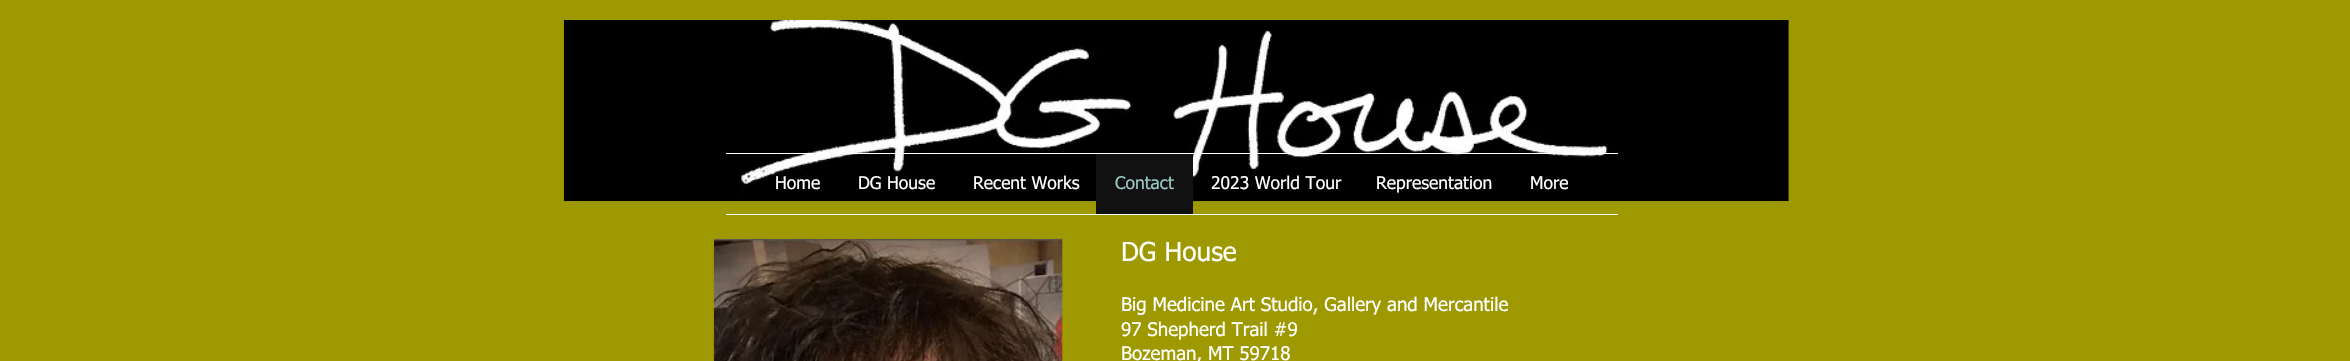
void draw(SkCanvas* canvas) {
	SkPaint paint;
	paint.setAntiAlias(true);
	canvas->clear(0xff9e9900);
	canvas->drawImageRect(SkImages::DeferredFromEncodedData(SkData::MakeFromFileName("img1.png")), SkRect::MakeXYWH(563, 20, 1226, 182), SkSamplingOptions());
	paint.setColor(0xffffffff);
	canvas->drawRect(SkRect::MakeXYWH(726, 153, 892, 1), paint);
	canvas->drawRect(SkRect::MakeXYWH(726, 214, 892, 1), paint);
	SkFont f1(fontMgr->matchFamilyStyle("tahoma", SkFontStyle::Normal()), 17.5);
	f1.setSubpixel(true);
	canvas->drawString("Home", 775, 189, f1, paint);
	canvas->drawString("DG House", 858, 189, f1, paint);
	canvas->drawString("Recent Works", 973, 189, f1, paint);
	paint.setColor(0xff111111);
	canvas->drawRect(SkRect::MakeXYWH(1096, 154, 97, 60), paint);
	paint.setColor(0xff99c9c1);
	canvas->drawString("Contact", 1115, 189, f1, paint);
	paint.setColor(0xffffffff);
	canvas->drawString("2023 World Tour", 1211, 189, f1, paint);
	canvas->drawString("Representation", 1376, 189, f1, paint);
	canvas->drawString("More", 1530, 189, f1, paint);
	canvas->drawImageRect(SkImages::DeferredFromEncodedData(SkData::MakeFromFileName("img2.png")), SkRect::MakeXYWH(713, 238, 350, 123), SkSamplingOptions());
	SkFont f2(fontMgr->matchFamilyStyle("tahoma", SkFontStyle::Normal()), 26.25);
	f2.setSubpixel(true);
	canvas->drawString("DG House", 1121, 261, f2, paint);
	SkFont f3(fontMgr->matchFamilyStyle("tahoma", SkFontStyle::Normal()), 18.75);
	f3.setSubpixel(true);
	canvas->drawString("Big Medicine Art Studio, Gallery and Mercantile", 1121, 311, f3, paint);
	canvas->drawString("97 Shepherd Trail #9", 1121, 336, f3, paint);
	canvas->drawString("Bozeman, MT 59718", 1121, 360, f3, paint);
}
